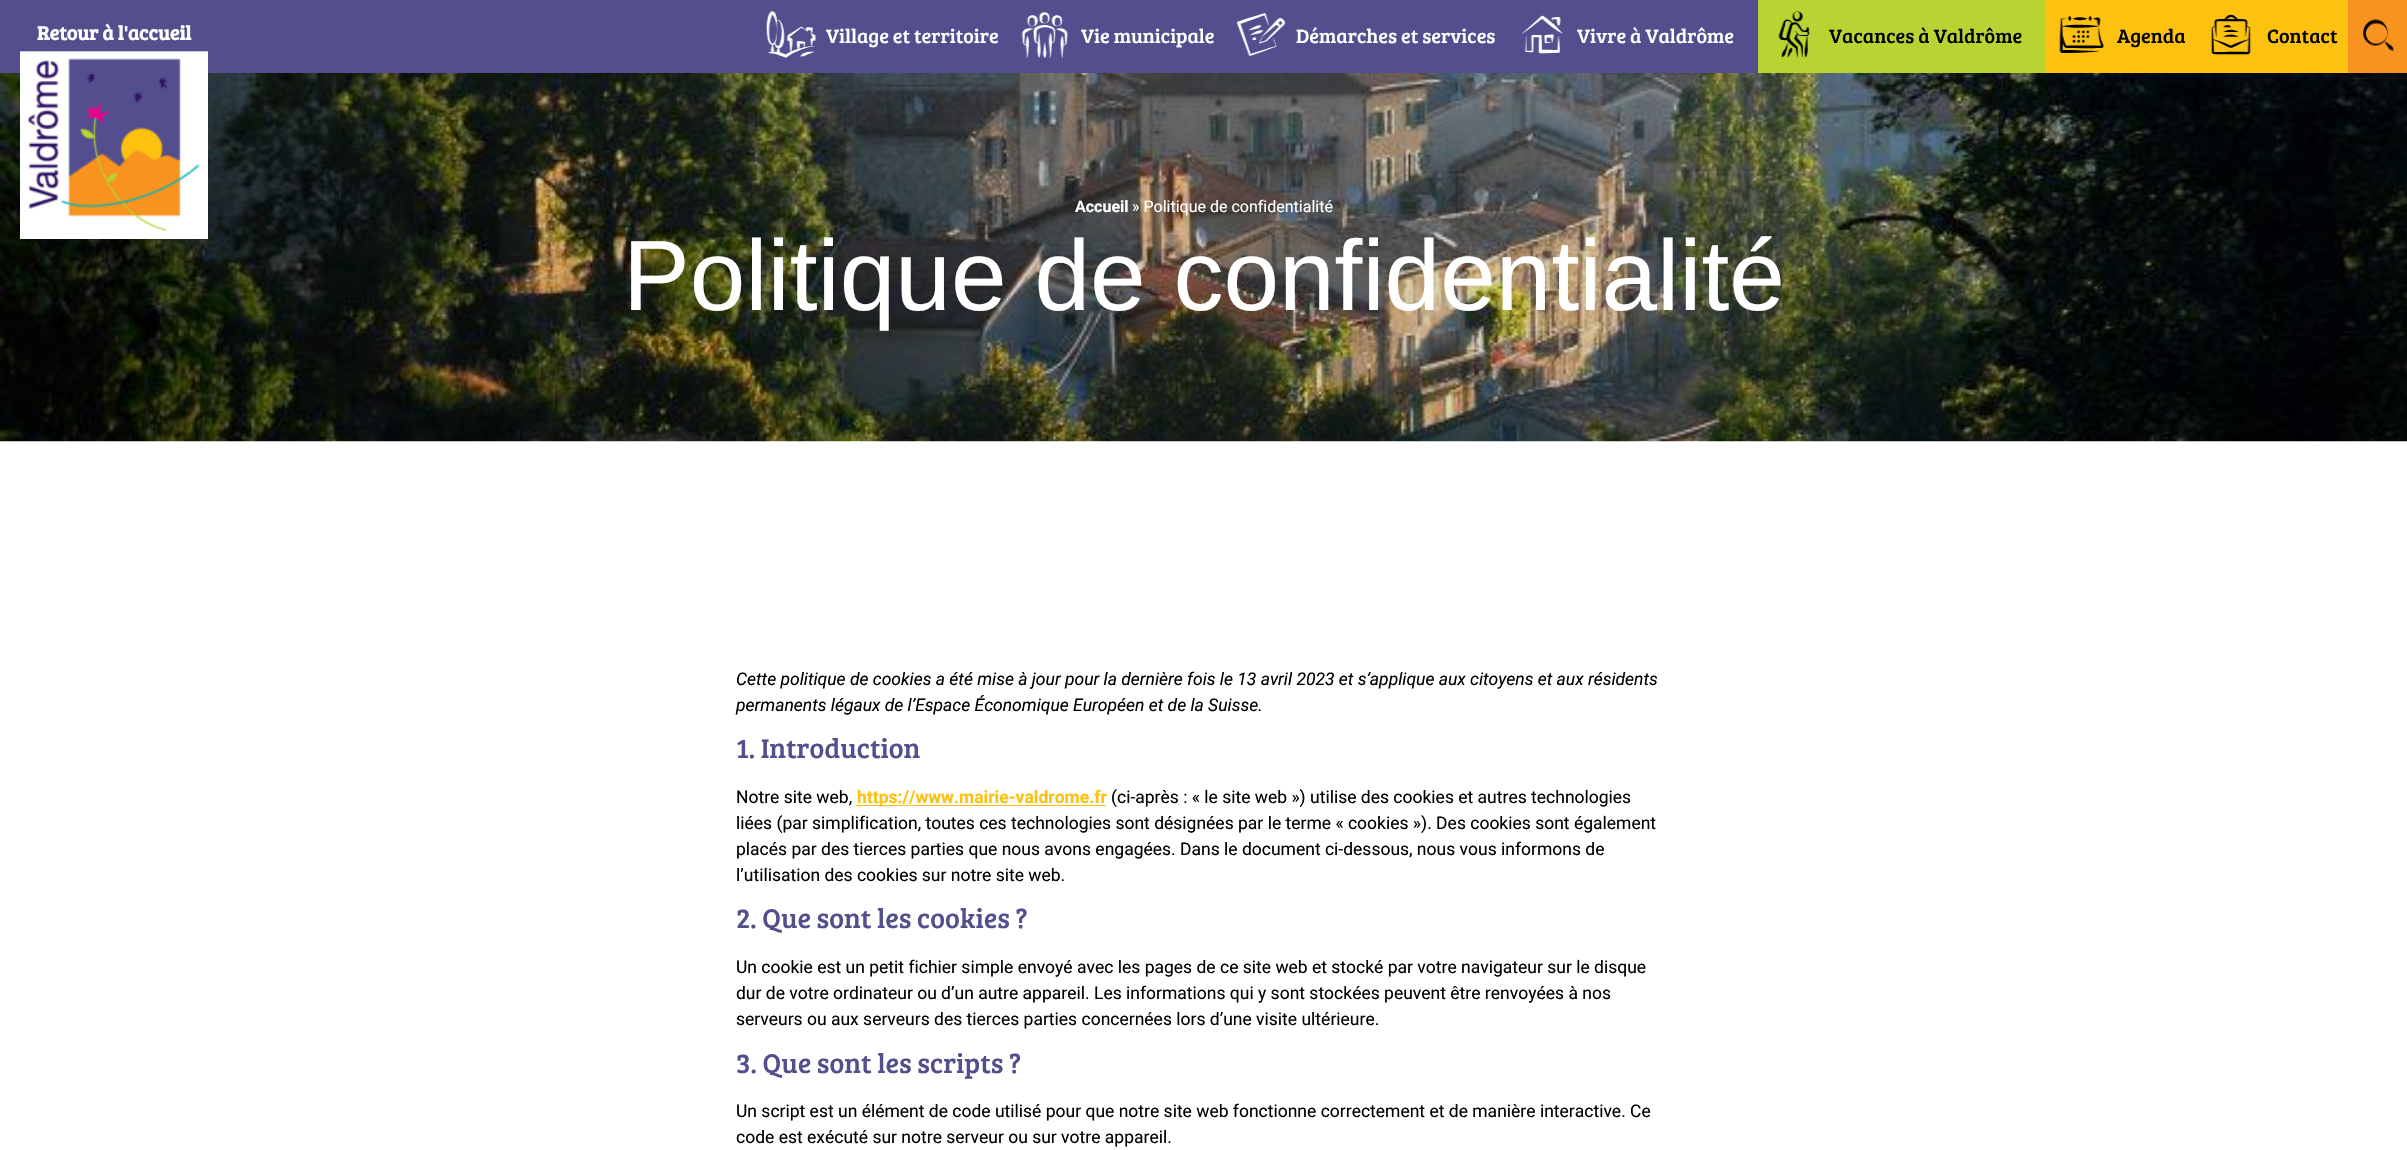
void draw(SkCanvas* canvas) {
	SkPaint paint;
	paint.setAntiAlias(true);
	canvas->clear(0xffffffff);
	paint.setColor(0xff534f8f);
	canvas->drawRect(SkRect::MakeXYWH(0, 0, 1758, 73), paint);
	SkFont f1(fontMgr->matchFamilyStyle("Bree Serif", SkFontStyle::Bold()), 20);
	f1.setSubpixel(true);
	paint.setColor(0xffffffff);
	canvas->drawString("Retour à l'accueil", 37, 40, f1, paint);
	canvas->drawImageRect(SkImages::DeferredFromEncodedData(SkData::MakeFromFileName("img10.png")), SkRect::MakeXYWH(0, 73, 2407, 369), SkSamplingOptions());
	canvas->drawImageRect(SkImages::DeferredFromEncodedData(SkData::MakeFromFileName("img1.png")), SkRect::MakeXYWH(20, 51, 188, 188), SkSamplingOptions());
	canvas->drawImageRect(SkImages::DeferredFromEncodedData(SkData::MakeFromFileName("img2.png")), SkRect::MakeXYWH(766, 11, 50, 47), SkSamplingOptions());
	SkFont f2(fontMgr->matchFamilyStyle("Bree Serif", SkFontStyle::Normal()), 20);
	f2.setSubpixel(true);
	canvas->drawString("Village et territoire", 826, 43, f2, paint);
	canvas->drawImageRect(SkImages::DeferredFromEncodedData(SkData::MakeFromFileName("img3.png")), SkRect::MakeXYWH(1021, 12, 47, 47), SkSamplingOptions());
	canvas->drawString("Vie municipale", 1081, 43, f2, paint);
	canvas->drawImageRect(SkImages::DeferredFromEncodedData(SkData::MakeFromFileName("img4.png")), SkRect::MakeXYWH(1236, 13, 50, 43), SkSamplingOptions());
	canvas->drawString("Démarches et services", 1296, 43, f2, paint);
	canvas->drawImageRect(SkImages::DeferredFromEncodedData(SkData::MakeFromFileName("img5.png")), SkRect::MakeXYWH(1521, 15, 42, 39), SkSamplingOptions());
	canvas->drawString("Vivre à Valdrôme", 1577, 43, f2, paint);
	paint.setColor(0xffb8d432);
	canvas->drawRect(SkRect::MakeXYWH(1758, 0, 287, 73), paint);
	canvas->drawImageRect(SkImages::DeferredFromEncodedData(SkData::MakeFromFileName("img6.png")), SkRect::MakeXYWH(1778, 11, 32, 47), SkSamplingOptions());
	paint.setColor(0xff000000);
	canvas->drawString("Vacances à Valdrôme", 1829, 43, f2, paint);
	paint.setColor(0xfffdc110);
	canvas->drawRect(SkRect::MakeXYWH(2045, 0, 303, 73), paint);
	canvas->drawImageRect(SkImages::DeferredFromEncodedData(SkData::MakeFromFileName("img7.png")), SkRect::MakeXYWH(2059, 16, 45, 37), SkSamplingOptions());
	paint.setColor(0xff000000);
	canvas->drawString("Agenda", 2117, 43, f2, paint);
	canvas->drawImageRect(SkImages::DeferredFromEncodedData(SkData::MakeFromFileName("img8.png")), SkRect::MakeXYWH(2211, 14, 40, 41), SkSamplingOptions());
	canvas->drawString("Contact", 2267, 43, f2, paint);
	paint.setColor(0xfff7931e);
	canvas->drawRect(SkRect::MakeXYWH(2348, 0, 59, 73), paint);
	canvas->drawImageRect(SkImages::DeferredFromEncodedData(SkData::MakeFromFileName("img9.png")), SkRect::MakeXYWH(2363, 19, 31, 32), SkSamplingOptions());
	SkFont f3(fontMgr->matchFamilyStyle("Roboto", SkFontStyle::Bold()), 16);
	f3.setSubpixel(true);
	paint.setColor(0xffffffff);
	canvas->drawString("Accueil", 1075, 212, f3, paint);
	SkFont f4(fontMgr->matchFamilyStyle("Roboto", SkFontStyle::Normal()), 16);
	f4.setSubpixel(true);
	canvas->drawString("» Politique de confidentialité", 1132, 212, f4, paint);
	SkFont f5(fontMgr->matchFamilyStyle("Liberation Sans", SkFontStyle::Normal()), 100);
	f5.setSubpixel(true);
	canvas->drawString("Politique de confidentialité", 623, 310, f5, paint);
	SkFont f6(fontMgr->matchFamilyStyle("Roboto", SkFontStyle::Italic()), 17.5);
	f6.setSubpixel(true);
	paint.setColor(0xff000000);
	canvas->drawString("Cette politique de cookies a été mise à jour pour la dernière fois le 13 avril 2023 et s’applique aux citoyens et aux résidents", 736, 685, f6, paint);
	canvas->drawString("permanents légaux de l’Espace Économique Européen et de la Suisse.", 736, 711, f6, paint);
	SkFont f7(fontMgr->matchFamilyStyle("Bree Serif", SkFontStyle::Normal()), 28);
	f7.setSubpixel(true);
	paint.setColor(0xff534f8f);
	canvas->drawString("1. Introduction", 736, 758, f7, paint);
	SkFont f8(fontMgr->matchFamilyStyle("Roboto", SkFontStyle::Normal()), 17.5);
	f8.setSubpixel(true);
	paint.setColor(0xff000000);
	canvas->drawString("Notre site web,", 736, 803, f8, paint);
	paint.setColor(0xfffdc110);
	canvas->drawRect(SkRect::MakeXYWH(856, 805, 250, 1), paint);
	SkFont f9(fontMgr->matchFamilyStyle("Roboto", SkFontStyle::Bold()), 17.5);
	f9.setSubpixel(true);
	canvas->drawString("https://www.mairie-valdrome.fr", 857, 803, f9, paint);
	paint.setColor(0xff000000);
	canvas->drawString("(ci-après : « le site web ») utilise des cookies et autres technologies", 1111, 803, f8, paint);
	canvas->drawString("liées (par simplification, toutes ces technologies sont désignées par le terme « cookies »). Des cookies sont également", 736, 829, f8, paint);
	canvas->drawString("placés par des tierces parties que nous avons engagées. Dans le document ci-dessous, nous vous informons de", 736, 855, f8, paint);
	canvas->drawString("l’utilisation des cookies sur notre site web.", 736, 881, f8, paint);
	paint.setColor(0xff534f8f);
	canvas->drawString("2. Que sont les cookies ?", 736, 928, f7, paint);
	paint.setColor(0xff000000);
	canvas->drawString("Un cookie est un petit fichier simple envoyé avec les pages de ce site web et stocké par votre navigateur sur le disque", 736, 973, f8, paint);
	canvas->drawString("dur de votre ordinateur ou d’un autre appareil. Les informations qui y sont stockées peuvent être renvoyées à nos", 736, 999, f8, paint);
	canvas->drawString("serveurs ou aux serveurs des tierces parties concernées lors d’une visite ultérieure.", 736, 1025, f8, paint);
	paint.setColor(0xff534f8f);
	canvas->drawString("3. Que sont les scripts ?", 736, 1073, f7, paint);
	paint.setColor(0xff000000);
	canvas->drawString("Un script est un élément de code utilisé pour que notre site web fonctionne correctement et de manière interactive. Ce", 736, 1117, f8, paint);
	canvas->drawString("code est exécuté sur notre serveur ou sur votre appareil.", 736, 1143, f8, paint);
}
